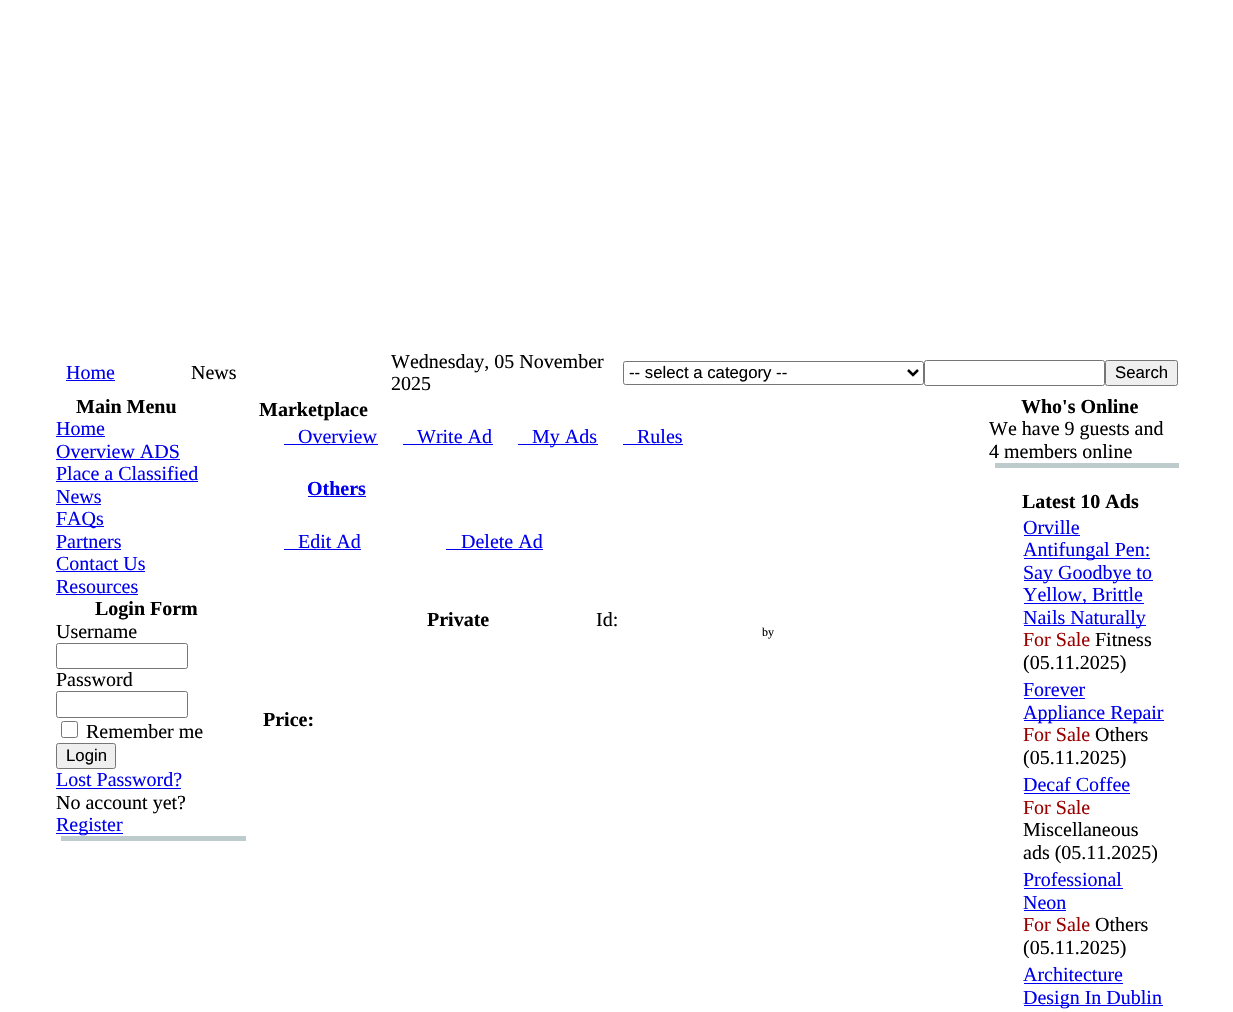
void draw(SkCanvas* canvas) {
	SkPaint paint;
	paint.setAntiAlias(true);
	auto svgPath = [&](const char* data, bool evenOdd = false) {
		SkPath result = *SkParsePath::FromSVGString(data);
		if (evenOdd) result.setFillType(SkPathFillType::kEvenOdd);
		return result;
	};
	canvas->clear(0xffffffff);
	SkFont f1(fontMgr->matchFamilyStyle("Liberation Serif", SkFontStyle::Normal()), 20);
	f1.setSubpixel(true);
	paint.setColor(0xff0000ee);
	canvas->drawString("Home", 66, 379, f1, paint);
	canvas->drawRect(SkRect::MakeXYWH(66, 380, 49, 1), paint);
	paint.setColor(0xff000000);
	canvas->drawString("News", 191, 379, f1, paint);
	canvas->drawString("Wednesday, 05 November", 391, 368, f1, paint);
	canvas->drawString("2025", 391, 390, f1, paint);
	paint.setStroke(true);
	paint.setStrokeWidth(1);
	paint.setColor(0xff767676);
	canvas->drawRoundRect(SkRect::MakeXYWH(623.5, 361.5, 300, 23), 2, 2, paint);
	paint.setStrokeWidth(2.5);
	paint.setColor(0xff000000);
	canvas->drawPath(svgPath("M908 370L913 375L918 370"), paint);
	SkFont f2(fontMgr->matchFamilyStyle("Liberation Sans", SkFontStyle::Normal()), 16.75);
	f2.setSubpixel(true);
	paint.setStroke(false);
	canvas->drawString("-- select a category --", 629, 378, f2, paint);
	paint.setStroke(true);
	paint.setStrokeWidth(1);
	paint.setColor(0xff767676);
	canvas->drawRoundRect(SkRect::MakeXYWH(924.5, 360.5, 180, 25), 2, 2, paint);
	paint.setStroke(false);
	paint.setColor(0xffefefef);
	canvas->drawRoundRect(SkRect::MakeXYWH(1105.5, 360.5, 72, 25), 2, 2, paint);
	paint.setStroke(true);
	paint.setColor(0xff767676);
	canvas->drawRoundRect(SkRect::MakeXYWH(1105.5, 360.5, 72, 25), 2, 2, paint);
	paint.setStroke(false);
	paint.setColor(0xff000000);
	canvas->drawString("Search", 1115, 378, f2, paint);
	SkFont f3(fontMgr->matchFamilyStyle("Liberation Serif", SkFontStyle::Bold()), 20);
	f3.setSubpixel(true);
	canvas->drawString("Main Menu", 76, 413, f3, paint);
	paint.setColor(0xff0000ee);
	canvas->drawString("Home", 56, 435, f1, paint);
	canvas->drawRect(SkRect::MakeXYWH(56, 436, 49, 1), paint);
	canvas->drawString("Overview ADS", 56, 458, f1, paint);
	canvas->drawRect(SkRect::MakeXYWH(56, 459, 124, 1), paint);
	canvas->drawString("Place a Classified", 56, 480, f1, paint);
	canvas->drawRect(SkRect::MakeXYWH(56, 481, 142, 1), paint);
	canvas->drawString("News", 56, 503, f1, paint);
	canvas->drawRect(SkRect::MakeXYWH(56, 504, 45, 1), paint);
	canvas->drawRect(SkRect::MakeXYWH(56, 526, 48, 1), paint);
	canvas->drawString("FAQs", 56, 525, f1, paint);
	canvas->drawString("Partners", 56, 548, f1, paint);
	canvas->drawRect(SkRect::MakeXYWH(56, 549, 65, 1), paint);
	canvas->drawString("Contact Us", 56, 570, f1, paint);
	canvas->drawRect(SkRect::MakeXYWH(56, 571, 89, 1), paint);
	canvas->drawString("Resources", 56, 593, f1, paint);
	canvas->drawRect(SkRect::MakeXYWH(56, 594, 82, 1), paint);
	paint.setColor(0xff000000);
	canvas->drawString("Login Form", 95, 615, f3, paint);
	canvas->drawString("Username", 56, 638, f1, paint);
	paint.setStroke(true);
	paint.setColor(0xff767676);
	canvas->drawRoundRect(SkRect::MakeXYWH(56.5, 643.5, 131, 25), 2, 2, paint);
	paint.setStroke(false);
	paint.setColor(0xff000000);
	canvas->drawString("Password", 56, 686, f1, paint);
	paint.setStroke(true);
	paint.setColor(0xff767676);
	canvas->drawRoundRect(SkRect::MakeXYWH(56.5, 691.5, 131, 26), 2, 2, paint);
	canvas->drawRoundRect(SkRect::MakeXYWH(61.5, 721.5, 16, 16), 2, 2, paint);
	paint.setStroke(false);
	paint.setColor(0xff000000);
	canvas->drawString("Remember me", 86, 738, f1, paint);
	paint.setColor(0xffefefef);
	canvas->drawRoundRect(SkRect::MakeXYWH(56.5, 743.5, 59, 25), 2, 2, paint);
	paint.setStroke(true);
	paint.setColor(0xff767676);
	canvas->drawRoundRect(SkRect::MakeXYWH(56.5, 743.5, 59, 25), 2, 2, paint);
	paint.setStroke(false);
	paint.setColor(0xff000000);
	canvas->drawString("Login", 66, 761, f2, paint);
	paint.setColor(0xff0000ee);
	canvas->drawString("Lost Password?", 56, 786, f1, paint);
	canvas->drawRect(SkRect::MakeXYWH(56, 788, 125, 1), paint);
	paint.setColor(0xff000000);
	canvas->drawString("No account yet?", 56, 809, f1, paint);
	paint.setColor(0xff0000ee);
	canvas->drawRect(SkRect::MakeXYWH(56, 833, 67, 1), paint);
	canvas->drawString("Register", 56, 831, f1, paint);
	paint.setColor(0xffbecbcd);
	canvas->drawRect(SkRect::MakeXYWH(61, 836, 185, 5), paint);
	paint.setColor(0xff000000);
	canvas->drawString("Marketplace", 259, 416, f3, paint);
	paint.setColor(0xff0000ee);
	canvas->drawString("Overview", 298, 443, f1, paint);
	canvas->drawRect(SkRect::MakeXYWH(284, 444, 94, 1), paint);
	canvas->drawString("Write Ad", 417, 443, f1, paint);
	canvas->drawRect(SkRect::MakeXYWH(403, 444, 90, 1), paint);
	canvas->drawRect(SkRect::MakeXYWH(518, 444, 80, 1), paint);
	canvas->drawString("My Ads", 532, 443, f1, paint);
	canvas->drawString("Rules", 637, 443, f1, paint);
	canvas->drawRect(SkRect::MakeXYWH(623, 444, 60, 1), paint);
	canvas->drawString("Others", 307, 495, f3, paint);
	canvas->drawRect(SkRect::MakeXYWH(308, 496, 58, 1), paint);
	canvas->drawString("Edit Ad", 298, 548, f1, paint);
	canvas->drawRect(SkRect::MakeXYWH(284, 549, 77, 1), paint);
	canvas->drawString("Delete Ad", 461, 548, f1, paint);
	canvas->drawRect(SkRect::MakeXYWH(446, 549, 97, 1), paint);
	paint.setColor(0xff000000);
	canvas->drawString("Private", 427, 626, f3, paint);
	canvas->drawString("Id:", 596, 626, f1, paint);
	SkFont f4(fontMgr->matchFamilyStyle("Liberation Serif", SkFontStyle::Normal()), 12);
	f4.setSubpixel(true);
	canvas->drawString("by", 762, 636, f4, paint);
	canvas->drawString("Price:", 263, 726, f3, paint);
	canvas->drawString("Who's Online", 1021, 413, f3, paint);
	canvas->drawString("We have 9 guests and", 989, 435, f1, paint);
	canvas->drawString("4 members online", 989, 458, f1, paint);
	paint.setColor(0xffbecbcd);
	canvas->drawRect(SkRect::MakeXYWH(995, 463, 184, 5), paint);
	paint.setColor(0xff000000);
	canvas->drawString("Latest 10 Ads", 1022, 508, f3, paint);
	paint.setColor(0xff0000ee);
	canvas->drawString("Orville", 1023, 534, f1, paint);
	canvas->drawRect(SkRect::MakeXYWH(1024, 535, 56, 1), paint);
	canvas->drawRect(SkRect::MakeXYWH(1024, 558, 126, 1), paint);
	canvas->drawString("Antifungal Pen:", 1023, 556, f1, paint);
	canvas->drawRect(SkRect::MakeXYWH(1024, 580, 129, 1), paint);
	canvas->drawString("Say Goodbye to", 1023, 579, f1, paint);
	canvas->drawRect(SkRect::MakeXYWH(1024, 603, 120, 1), paint);
	canvas->drawString("Yellow, Brittle", 1023, 601, f1, paint);
	canvas->drawRect(SkRect::MakeXYWH(1024, 625, 122, 1), paint);
	canvas->drawString("Nails Naturally", 1023, 624, f1, paint);
	paint.setColor(0xff990000);
	canvas->drawString("For Sale", 1023, 646, f1, paint);
	paint.setColor(0xff000000);
	canvas->drawString("Fitness", 1095, 646, f1, paint);
	canvas->drawString("(05.11.2025)", 1023, 669, f1, paint);
	paint.setColor(0xff0000ee);
	canvas->drawString("Forever", 1023, 696, f1, paint);
	canvas->drawRect(SkRect::MakeXYWH(1024, 698, 61, 1), paint);
	canvas->drawRect(SkRect::MakeXYWH(1024, 720, 140, 1), paint);
	canvas->drawString("Appliance Repair", 1023, 719, f1, paint);
	paint.setColor(0xff990000);
	canvas->drawString("For Sale", 1023, 741, f1, paint);
	paint.setColor(0xff000000);
	canvas->drawString("Others", 1095, 741, f1, paint);
	canvas->drawString("(05.11.2025)", 1023, 764, f1, paint);
	paint.setColor(0xff0000ee);
	canvas->drawString("Decaf Coffee", 1023, 791, f1, paint);
	canvas->drawRect(SkRect::MakeXYWH(1024, 793, 106, 1), paint);
	paint.setColor(0xff990000);
	canvas->drawString("For Sale", 1023, 814, f1, paint);
	paint.setColor(0xff000000);
	canvas->drawString("Miscellaneous", 1023, 836, f1, paint);
	canvas->drawString("ads (05.11.2025)", 1023, 859, f1, paint);
	paint.setColor(0xff0000ee);
	canvas->drawString("Professional", 1023, 886, f1, paint);
	canvas->drawRect(SkRect::MakeXYWH(1024, 888, 99, 1), paint);
	canvas->drawString("Neon", 1023, 909, f1, paint);
	canvas->drawRect(SkRect::MakeXYWH(1024, 910, 42, 1), paint);
	paint.setColor(0xff990000);
	canvas->drawString("For Sale", 1023, 931, f1, paint);
	paint.setColor(0xff000000);
	canvas->drawString("Others", 1095, 931, f1, paint);
	canvas->drawString("(05.11.2025)", 1023, 954, f1, paint);
	paint.setColor(0xff0000ee);
	canvas->drawString("Architecture", 1023, 981, f1, paint);
	canvas->drawRect(SkRect::MakeXYWH(1024, 983, 99, 1), paint);
	canvas->drawRect(SkRect::MakeXYWH(1024, 1005, 139, 1), paint);
	canvas->drawString("Design In Dublin", 1023, 1004, f1, paint);
}
